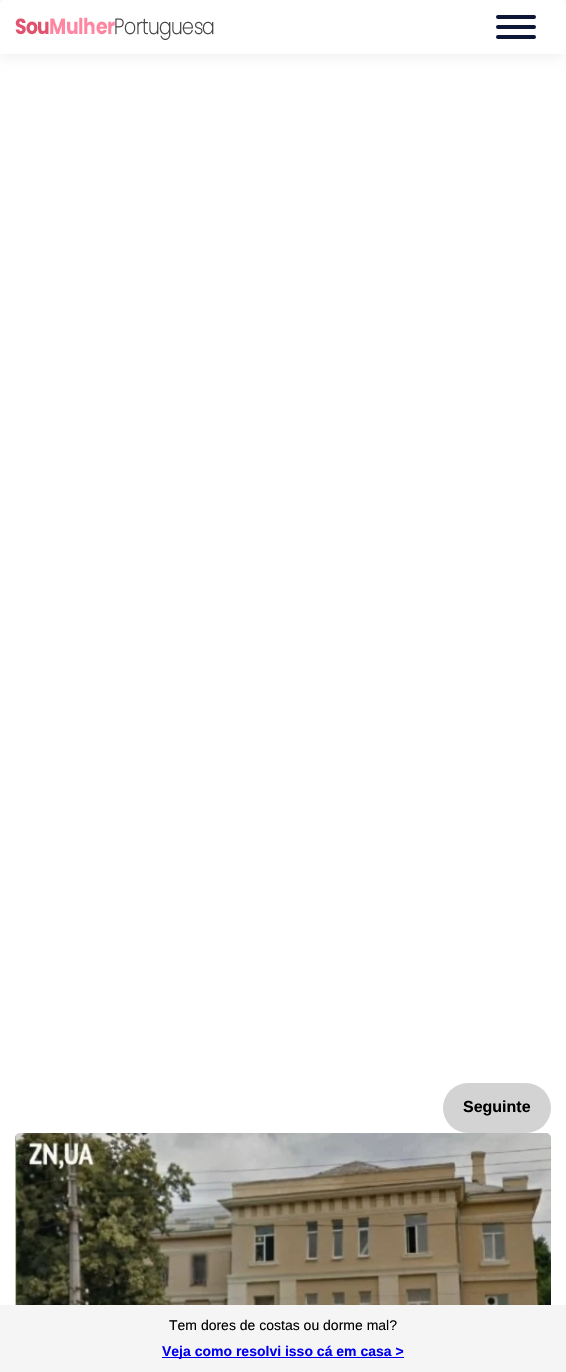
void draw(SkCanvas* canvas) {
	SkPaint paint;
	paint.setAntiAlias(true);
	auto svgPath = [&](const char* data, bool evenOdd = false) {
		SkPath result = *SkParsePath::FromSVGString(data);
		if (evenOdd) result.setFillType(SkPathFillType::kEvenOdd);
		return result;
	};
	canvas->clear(0xffffffff);
	paint.setColor(0x17000000);
	paint.setMaskFilter(SkMaskFilter::MakeBlur(kNormal_SkBlurStyle, 8));
	canvas->drawRoundRect(SkRect::MakeXYWH(-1, 0, 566, 54), 5, 5, paint);
	paint.setMaskFilter(nullptr);
	paint.setColor(0xffffffff);
	canvas->drawPath(svgPath("M5 0H561C564 0 566 2 566 5V54H0V5C0 2 2 0 5 0Z"), paint);
	canvas->drawImageRect(SkImages::DeferredFromEncodedData(SkData::MakeFromFileName("img1.png")), SkRect::MakeXYWH(15, 17, 199, 23), SkSamplingOptions());
	paint.setColor(0xff0e1638);
	canvas->drawRoundRect(SkRect::MakeXYWH(496, 15, 40, 4), 2, 2, paint);
	canvas->drawRoundRect(SkRect::MakeXYWH(496, 25, 40, 4), 2, 2, paint);
	canvas->drawRoundRect(SkRect::MakeXYWH(496, 35, 40, 4), 2, 2, paint);
	paint.setColor(0xffd3d3d3);
	canvas->drawRoundRect(SkRect::MakeXYWH(443, 1083, 108, 50), 25, 25, paint);
	SkFont f1(fontMgr->matchFamilyStyle("Liberation Sans", SkFontStyle::Bold()), 16);
	f1.setSubpixel(true);
	paint.setColor(0xff000000);
	canvas->drawString("Seguinte", 463, 1112, f1, paint);
	canvas->drawImageRect(SkImages::DeferredFromEncodedData(SkData::MakeFromFileName("img2.png")), SkRect::MakeXYWH(15, 1133, 536, 172), SkSamplingOptions());
	paint.setColor(0xfff5f5f5);
	canvas->drawRect(SkRect::MakeXYWH(0, 1305, 566, 67), paint);
	SkFont f2(fontMgr->matchFamilyStyle("Liberation Sans", SkFontStyle::Normal()), 14);
	f2.setSubpixel(true);
	paint.setColor(0xff000000);
	canvas->drawString("Tem dores de costas ou dorme mal?", 169, 1330, f2, paint);
	paint.setColor(0xff0000ee);
	canvas->drawRect(SkRect::MakeXYWH(162, 1357, 242, 1), paint);
	SkFont f3(fontMgr->matchFamilyStyle("Liberation Sans", SkFontStyle::Bold()), 14);
	f3.setSubpixel(true);
	canvas->drawString("Veja como resolvi isso cá em casa >", 162, 1356, f3, paint);
}
